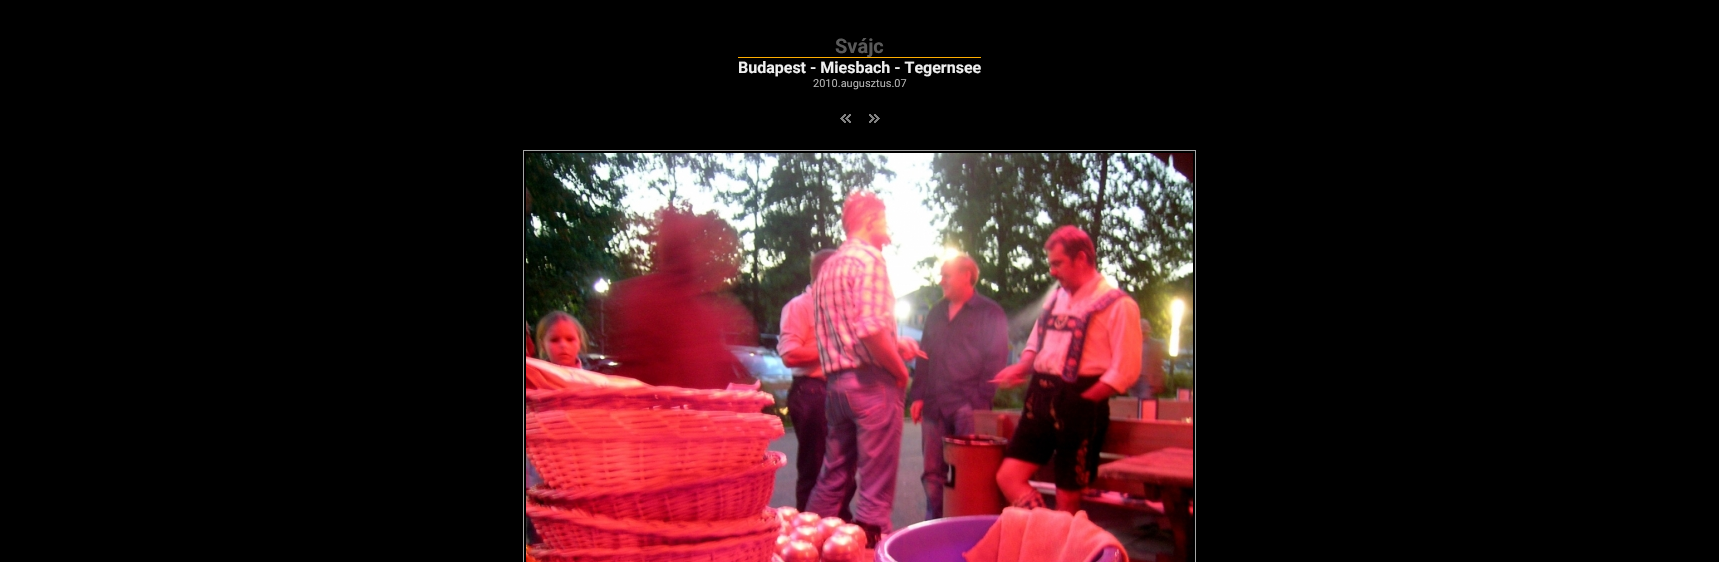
void draw(SkCanvas* canvas) {
	SkPaint paint;
	paint.setAntiAlias(true);
	canvas->clear(0xff000000);
	SkFont f1(fontMgr->matchFamilyStyle("Roboto", SkFontStyle::Bold()), 20);
	f1.setSubpixel(true);
	paint.setColor(0xff5a5a5a);
	canvas->drawString("Svájc", 835, 53, f1, paint);
	SkFont f2(fontMgr->matchFamilyStyle("Roboto", SkFontStyle::Bold()), 16);
	f2.setSubpixel(true);
	paint.setColor(0xffefefef);
	canvas->drawString("Budapest - Miesbach - Tegernsee", 738, 73, f2, paint);
	paint.setColor(0xffffae00);
	canvas->drawRect(SkRect::MakeXYWH(738, 57, 243, 1), paint);
	SkFont f3(fontMgr->matchFamilyStyle("Roboto", SkFontStyle::Normal()), 11);
	f3.setSubpixel(true);
	paint.setColor(0xffb3b3b3);
	canvas->drawString("2010.augusztus.07", 813, 87, f3, paint);
	canvas->drawImageRect(SkImages::DeferredFromEncodedData(SkData::MakeFromFileName("img1.png")), SkRect::MakeXYWH(840, 114, 11, 9), SkSamplingOptions());
	canvas->drawImageRect(SkImages::DeferredFromEncodedData(SkData::MakeFromFileName("img2.png")), SkRect::MakeXYWH(869, 114, 11, 9), SkSamplingOptions());
	paint.setStroke(true);
	paint.setStrokeWidth(1);
	paint.setColor(0xffa5a5a5);
	canvas->drawRect(SkRect::MakeXYWH(523.5, 150.5, 672, 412), paint);
	canvas->drawImageRect(SkImages::DeferredFromEncodedData(SkData::MakeFromFileName("img3.png")), SkRect::MakeXYWH(526, 153, 667, 409), SkSamplingOptions());
}
